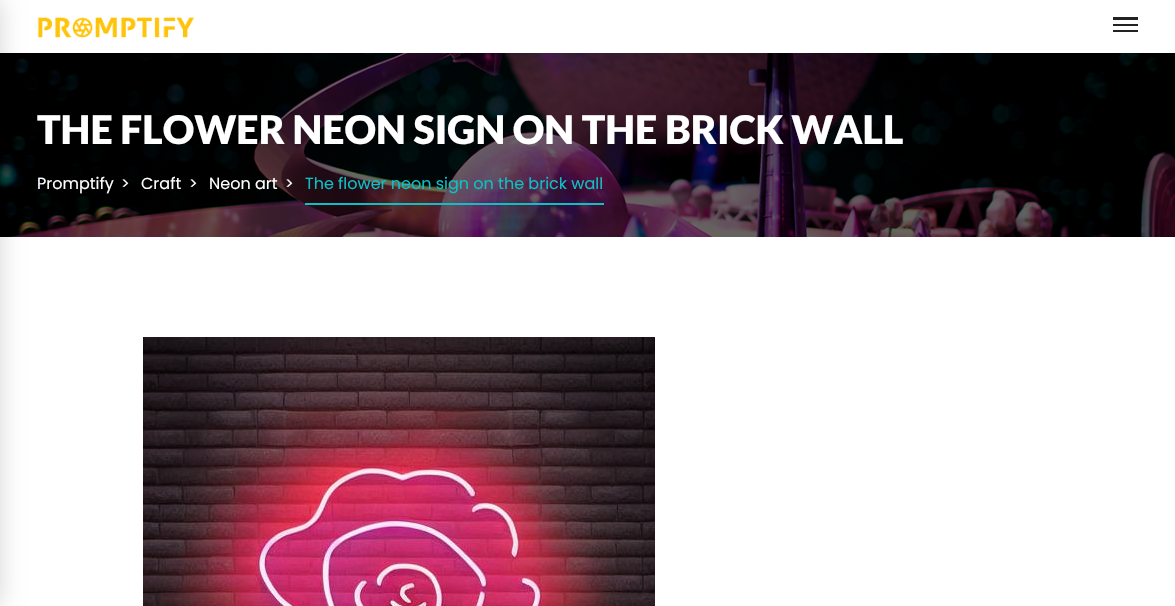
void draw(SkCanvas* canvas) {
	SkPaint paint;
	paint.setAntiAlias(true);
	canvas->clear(0xffffffff);
	canvas->drawImageRect(SkImages::DeferredFromEncodedData(SkData::MakeFromFileName("img1.png")), SkRect::MakeXYWH(37, 17, 157, 21), SkSamplingOptions());
	paint.setColor(0xff000000);
	canvas->drawRect(SkRect::MakeXYWH(0, 53, 1175, 184), paint);
	canvas->drawImageRect(SkImages::DeferredFromEncodedData(SkData::MakeFromFileName("img2.png")), SkRect::MakeXYWH(0, 53, 1175, 184), SkSamplingOptions());
	paint.setColor(0x29000000);
	paint.setMaskFilter(SkMaskFilter::MakeBlur(kNormal_SkBlurStyle, 12.5));
	canvas->drawRect(SkRect::MakeXYWH(-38, 0, 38, 606), paint);
	paint.setMaskFilter(nullptr);
	paint.setColor(0xff222222);
	canvas->drawRect(SkRect::MakeXYWH(1113, 17, 25, 3), paint);
	canvas->drawRect(SkRect::MakeXYWH(1113, 24, 25, 2), paint);
	canvas->drawRect(SkRect::MakeXYWH(1113, 30, 25, 2), paint);
	SkFont f1(fontMgr->matchFamilyStyle("Lato", SkFontStyle(900, SkFontStyle::kNormal_Width, SkFontStyle::kUpright_Slant)), 39.4);
	f1.setSubpixel(true);
	paint.setColor(0xffffffff);
	canvas->drawString("THE FLOWER NEON SIGN ON THE BRICK WALL", 37, 144, f1, paint);
	SkFont f2(fontMgr->matchFamilyStyle("Poppins", SkFontStyle::Normal()), 16);
	f2.setSubpixel(true);
	canvas->drawString("Promptify", 37, 189, f2, paint);
	canvas->drawString(">", 121, 189, f2, paint);
	canvas->drawString("Craft", 141, 189, f2, paint);
	canvas->drawString(">", 189, 189, f2, paint);
	canvas->drawString("Neon art", 209, 189, f2, paint);
	canvas->drawString(">", 285, 189, f2, paint);
	paint.setColor(0xff0dc0c6);
	canvas->drawRect(SkRect::MakeXYWH(305, 203, 299, 2), paint);
	canvas->drawString("The flower neon sign on the brick wall", 305, 189, f2, paint);
	canvas->drawImageRect(SkImages::DeferredFromEncodedData(SkData::MakeFromFileName("img3.png")), SkRect::MakeXYWH(143, 337, 512, 269), SkSamplingOptions());
}
